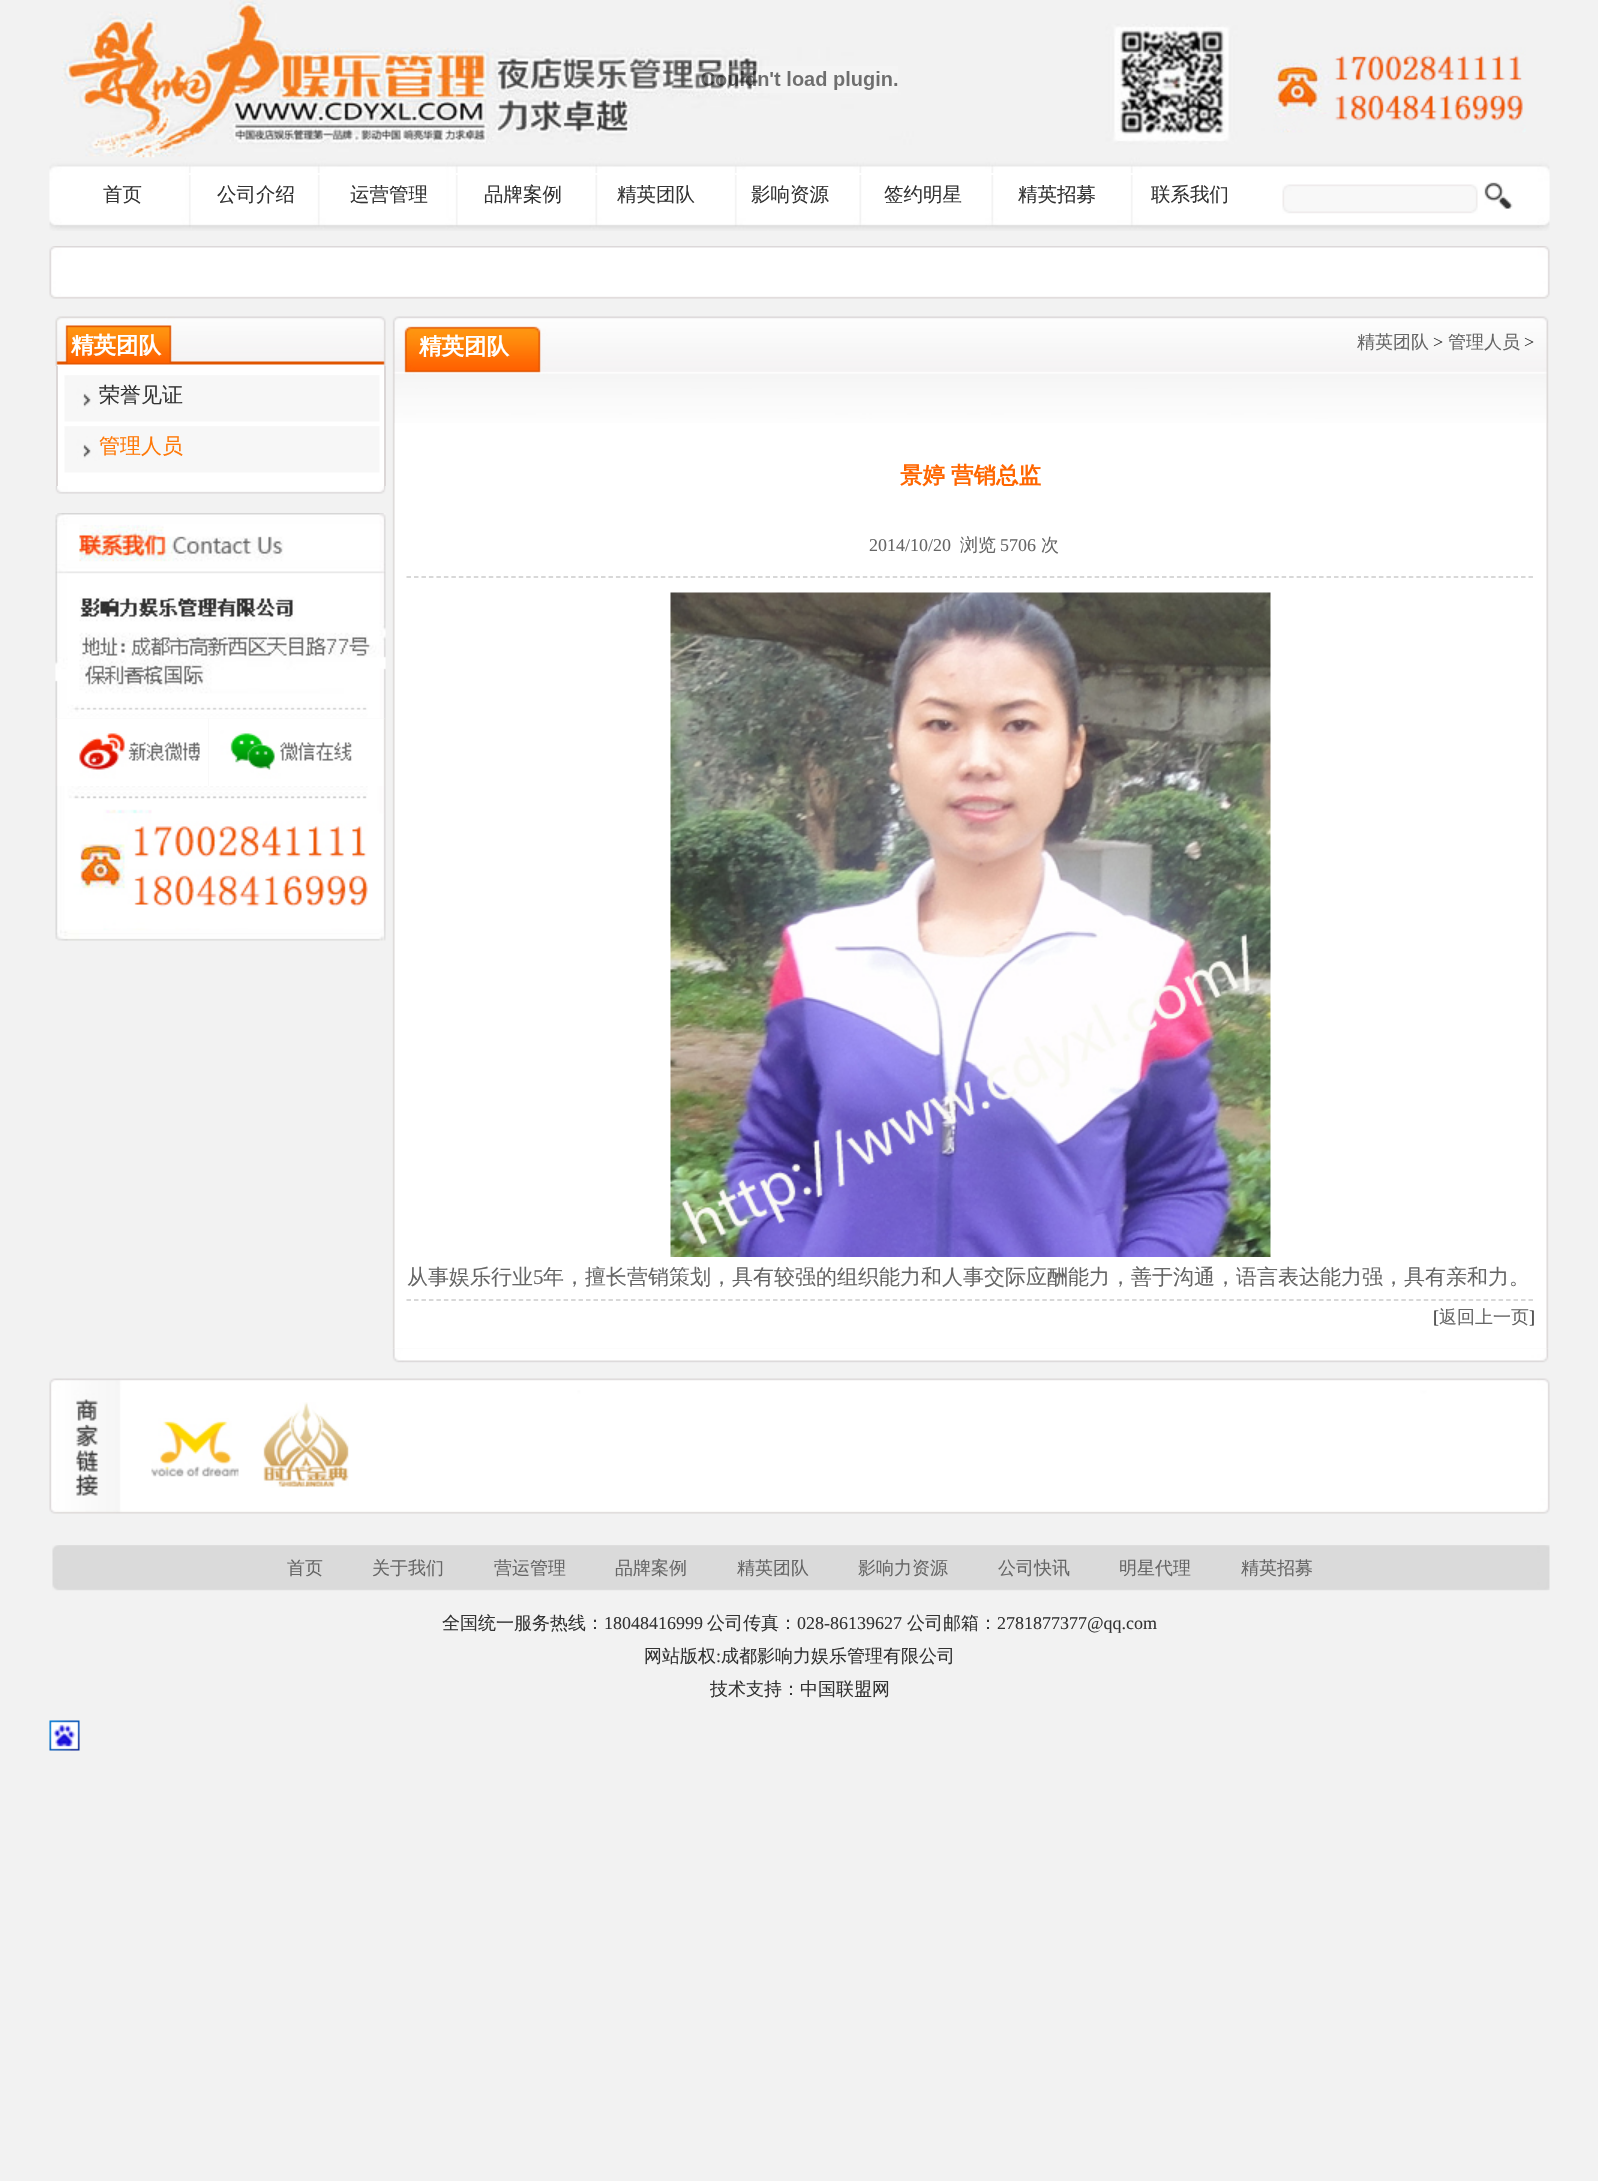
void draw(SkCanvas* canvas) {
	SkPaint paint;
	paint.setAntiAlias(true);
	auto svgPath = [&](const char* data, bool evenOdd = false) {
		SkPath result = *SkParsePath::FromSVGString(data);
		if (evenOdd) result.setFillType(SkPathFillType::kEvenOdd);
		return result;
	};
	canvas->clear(0xfff2f2f2);
	canvas->drawImageRect(SkImages::DeferredFromEncodedData(SkData::MakeFromFileName("img1.png")), SkRect::MakeXYWH(61, 0, 1465, 158), SkSamplingOptions());
	canvas->drawImageRect(SkImages::DeferredFromEncodedData(SkData::MakeFromFileName("img2.png")), SkRect::MakeXYWH(691, 66, 207, 27), SkSamplingOptions());
	canvas->drawImageRect(SkImages::DeferredFromEncodedData(SkData::MakeFromFileName("img3.png")), SkRect::MakeXYWH(49, 157, 1501, 74), SkSamplingOptions());
	SkFont f1(fontMgr->matchFamilyStyle("WenQuanYi Zen Hei", SkFontStyle(500, SkFontStyle::kNormal_Width, SkFontStyle::kUpright_Slant)), 19.5);
	f1.setSubpixel(true);
	paint.setColor(0xff333333);
	canvas->drawString("首页", 103, 201, f1, paint);
	paint.setColor(0xffffffff);
	canvas->drawRect(SkRect::MakeXYWH(189, 173, 134, 2), paint);
	paint.setColor(0xff333333);
	canvas->drawString("公司介绍", 217, 201, f1, paint);
	canvas->drawString("运营管理", 350, 201, f1, paint);
	paint.setColor(0xffffffff);
	canvas->drawRect(SkRect::MakeXYWH(456, 173, 2, 2), paint);
	paint.setColor(0xff333333);
	canvas->drawString("品牌案例", 484, 201, f1, paint);
	paint.setColor(0xffffffff);
	canvas->drawRect(SkRect::MakeXYWH(590, 173, 8, 2), paint);
	paint.setColor(0xff333333);
	canvas->drawString("精英团队", 617, 201, f1, paint);
	paint.setColor(0xffffffff);
	canvas->drawRect(SkRect::MakeXYWH(735, 173, 2, 2), paint);
	paint.setColor(0xff333333);
	canvas->drawString("影响资源", 751, 201, f1, paint);
	paint.setColor(0xffffffff);
	canvas->drawRect(SkRect::MakeXYWH(857, 173, 5, 2), paint);
	paint.setColor(0xff333333);
	canvas->drawString("签约明星", 884, 201, f1, paint);
	paint.setColor(0xffffffff);
	canvas->drawRect(SkRect::MakeXYWH(990, 173, 4, 2), paint);
	paint.setColor(0xff333333);
	canvas->drawString("精英招募", 1018, 201, f1, paint);
	paint.setColor(0xffffffff);
	canvas->drawRect(SkRect::MakeXYWH(1124, 173, 9, 2), paint);
	paint.setColor(0xff333333);
	canvas->drawString("联系我们", 1151, 201, f1, paint);
	canvas->drawImageRect(SkImages::DeferredFromEncodedData(SkData::MakeFromFileName("img4.png")), SkRect::MakeXYWH(1282, 184, 196, 30), SkSamplingOptions());
	canvas->drawImageRect(SkImages::DeferredFromEncodedData(SkData::MakeFromFileName("img5.png")), SkRect::MakeXYWH(1484, 182, 29, 27), SkSamplingOptions());
	canvas->drawImageRect(SkImages::DeferredFromEncodedData(SkData::MakeFromFileName("img6.png")), SkRect::MakeXYWH(49, 246, 1501, 53), SkSamplingOptions());
	canvas->drawImageRect(SkImages::DeferredFromEncodedData(SkData::MakeFromFileName("img7.png")), SkRect::MakeXYWH(55, 316, 331, 50), SkSamplingOptions());
	SkFont f2(fontMgr->matchFamilyStyle("WenQuanYi Zen Hei", SkFontStyle::Bold()), 22.5);
	f2.setSubpixel(true);
	paint.setColor(0xffffffff);
	canvas->drawString("精英团队", 71, 353, f2, paint);
	canvas->drawRect(SkRect::MakeXYWH(58, 366, 326, 120), paint);
	paint.setColor(0xffdcd7d7);
	canvas->drawRect(SkRect::MakeXYWH(384, 366, 2, 120), paint);
	canvas->drawRect(SkRect::MakeXYWH(56, 366, 2, 120), paint);
	canvas->drawImageRect(SkImages::DeferredFromEncodedData(SkData::MakeFromFileName("img8.png")), SkRect::MakeXYWH(64, 375, 316, 47), SkSamplingOptions());
	SkFont f3(fontMgr->matchFamilyStyle("WenQuanYi Zen Hei", SkFontStyle(500, SkFontStyle::kNormal_Width, SkFontStyle::kUpright_Slant)), 21);
	f3.setSubpixel(true);
	paint.setColor(0xff333333);
	canvas->drawString("荣誉见证", 99, 402, f3, paint);
	canvas->drawImageRect(SkImages::DeferredFromEncodedData(SkData::MakeFromFileName("img8.png")), SkRect::MakeXYWH(64, 426, 316, 47), SkSamplingOptions());
	paint.setColor(0xffff7908);
	canvas->drawString("管理人员", 99, 453, f3, paint);
	canvas->drawImageRect(SkImages::DeferredFromEncodedData(SkData::MakeFromFileName("img9.png")), SkRect::MakeXYWH(55, 486, 331, 8), SkSamplingOptions());
	canvas->drawImageRect(SkImages::DeferredFromEncodedData(SkData::MakeFromFileName("img10.png")), SkRect::MakeXYWH(55, 513, 331, 206), SkSamplingOptions());
	canvas->drawImageRect(SkImages::DeferredFromEncodedData(SkData::MakeFromFileName("img11.png")), SkRect::MakeXYWH(55, 718, 154, 68), SkSamplingOptions());
	canvas->drawImageRect(SkImages::DeferredFromEncodedData(SkData::MakeFromFileName("img12.png")), SkRect::MakeXYWH(209, 718, 177, 68), SkSamplingOptions());
	canvas->drawImageRect(SkImages::DeferredFromEncodedData(SkData::MakeFromFileName("img13.png")), SkRect::MakeXYWH(55, 786, 331, 155), SkSamplingOptions());
	canvas->drawImageRect(SkImages::DeferredFromEncodedData(SkData::MakeFromFileName("img14.png")), SkRect::MakeXYWH(392, 316, 1157, 107), SkSamplingOptions());
	paint.setColor(0xffffffff);
	canvas->drawString("精英团队", 419, 354, f2, paint);
	SkFont f4(fontMgr->matchFamilyStyle("WenQuanYi Zen Hei", SkFontStyle(500, SkFontStyle::kNormal_Width, SkFontStyle::kUpright_Slant)), 18);
	f4.setSubpixel(true);
	paint.setColor(0xff666666);
	canvas->drawString("精英团队", 1357, 348, f4, paint);
	SkFont f5(fontMgr->matchFamilyStyle("Liberation Serif", SkFontStyle::Normal()), 18);
	f5.setSubpixel(true);
	paint.setColor(0xff333333);
	canvas->drawString(">", 1433, 348, f5, paint);
	paint.setColor(0xff666666);
	canvas->drawString("管理人员", 1448, 348, f4, paint);
	paint.setColor(0xff333333);
	canvas->drawString(">", 1524, 348, f5, paint);
	canvas->drawImageRect(SkImages::DeferredFromEncodedData(SkData::MakeFromFileName("img15.png")), SkRect::MakeXYWH(392, 423, 1157, 926), SkSamplingOptions());
	paint.setColor(0xffff6600);
	canvas->drawString("景婷", 900, 483, f2, paint);
	canvas->drawString("营销总监", 951, 483, f2, paint);
	paint.setStroke(true);
	paint.setStrokeWidth(1.5);
	paint.setColor(0xffcccccc);
	paint.setPathEffect(SkDashPathEffect::Make({{4.5f, 2.98f}}, 0));
	canvas->drawPath(svgPath("M406.5 577H1534.5"), paint);
	paint.setPathEffect(nullptr);
	paint.setStroke(false);
	paint.setColor(0xff666666);
	canvas->drawString("2014/10/20", 869, 551, f5, paint);
	canvas->drawString("浏览", 960, 551, f4, paint);
	canvas->drawString("5706", 1000, 551, f5, paint);
	canvas->drawString("次", 1041, 551, f4, paint);
	canvas->drawImageRect(SkImages::DeferredFromEncodedData(SkData::MakeFromFileName("img16.png")), SkRect::MakeXYWH(670, 592, 601, 665), SkSamplingOptions());
	canvas->drawString("从事娱乐行业", 407, 1284, f3, paint);
	SkFont f6(fontMgr->matchFamilyStyle("Liberation Serif", SkFontStyle::Normal()), 21);
	f6.setSubpixel(true);
	canvas->drawString("5", 533, 1284, f6, paint);
	canvas->drawString("年，擅长营销策划，具有较强的组织能力和人事交际应酬能力，善于沟通，语言表达能力强，具有亲和力。", 543, 1284, f3, paint);
	paint.setStroke(true);
	paint.setColor(0xffcccccc);
	paint.setPathEffect(SkDashPathEffect::Make({{4.5f, 2.98f}}, 0));
	canvas->drawPath(svgPath("M406.5 1300H1534.5"), paint);
	paint.setPathEffect(nullptr);
	paint.setStroke(false);
	paint.setColor(0xff333333);
	canvas->drawString("[", 1433, 1323, f5, paint);
	paint.setColor(0xff666666);
	canvas->drawString("返回上一页", 1439, 1323, f4, paint);
	paint.setColor(0xff333333);
	canvas->drawString("]", 1529, 1323, f5, paint);
	canvas->drawImageRect(SkImages::DeferredFromEncodedData(SkData::MakeFromFileName("img17.png")), SkRect::MakeXYWH(392, 1348, 1157, 15), SkSamplingOptions());
	canvas->drawImageRect(SkImages::DeferredFromEncodedData(SkData::MakeFromFileName("img18.png")), SkRect::MakeXYWH(49, 1378, 1501, 136), SkSamplingOptions());
	canvas->drawImageRect(SkImages::DeferredFromEncodedData(SkData::MakeFromFileName("img19.png")), SkRect::MakeXYWH(151, 1418, 88, 59), SkSamplingOptions());
	canvas->drawImageRect(SkImages::DeferredFromEncodedData(SkData::MakeFromFileName("img20.png")), SkRect::MakeXYWH(263, 1402, 86, 86), SkSamplingOptions());
	canvas->drawImageRect(SkImages::DeferredFromEncodedData(SkData::MakeFromFileName("img21.png")), SkRect::MakeXYWH(52, 1545, 1498, 46), SkSamplingOptions());
	paint.setColor(0xff666666);
	canvas->drawString("首页", 287, 1574, f4, paint);
	canvas->drawString("关于我们", 372, 1574, f4, paint);
	canvas->drawString("营运管理", 494, 1574, f4, paint);
	canvas->drawString("品牌案例", 615, 1574, f4, paint);
	canvas->drawString("精英团队", 737, 1574, f4, paint);
	canvas->drawString("影响力资源", 858, 1574, f4, paint);
	canvas->drawString("公司快讯", 998, 1574, f4, paint);
	canvas->drawString("明星代理", 1119, 1574, f4, paint);
	canvas->drawString("精英招募", 1241, 1574, f4, paint);
	paint.setColor(0xff333333);
	canvas->drawString("全国统一服务热线：", 442, 1629, f4, paint);
	canvas->drawString("18048416999", 604, 1629, f5, paint);
	canvas->drawString("公司传真：", 707, 1629, f4, paint);
	canvas->drawString("028-86139627", 797, 1629, f5, paint);
	canvas->drawString("公司邮箱：", 907, 1629, f4, paint);
	canvas->drawString("2781877377@qq.com", 997, 1629, f5, paint);
	canvas->drawString("网站版权", 644, 1662, f4, paint);
	canvas->drawString(":", 716, 1662, f5, paint);
	canvas->drawString("成都影响力娱乐管理有限公司", 721, 1662, f4, paint);
	canvas->drawString("技术支持：中国联盟网", 710, 1695, f4, paint);
	canvas->drawImageRect(SkImages::DeferredFromEncodedData(SkData::MakeFromFileName("img22.png")), SkRect::MakeXYWH(49, 1720, 31, 31), SkSamplingOptions());
}
